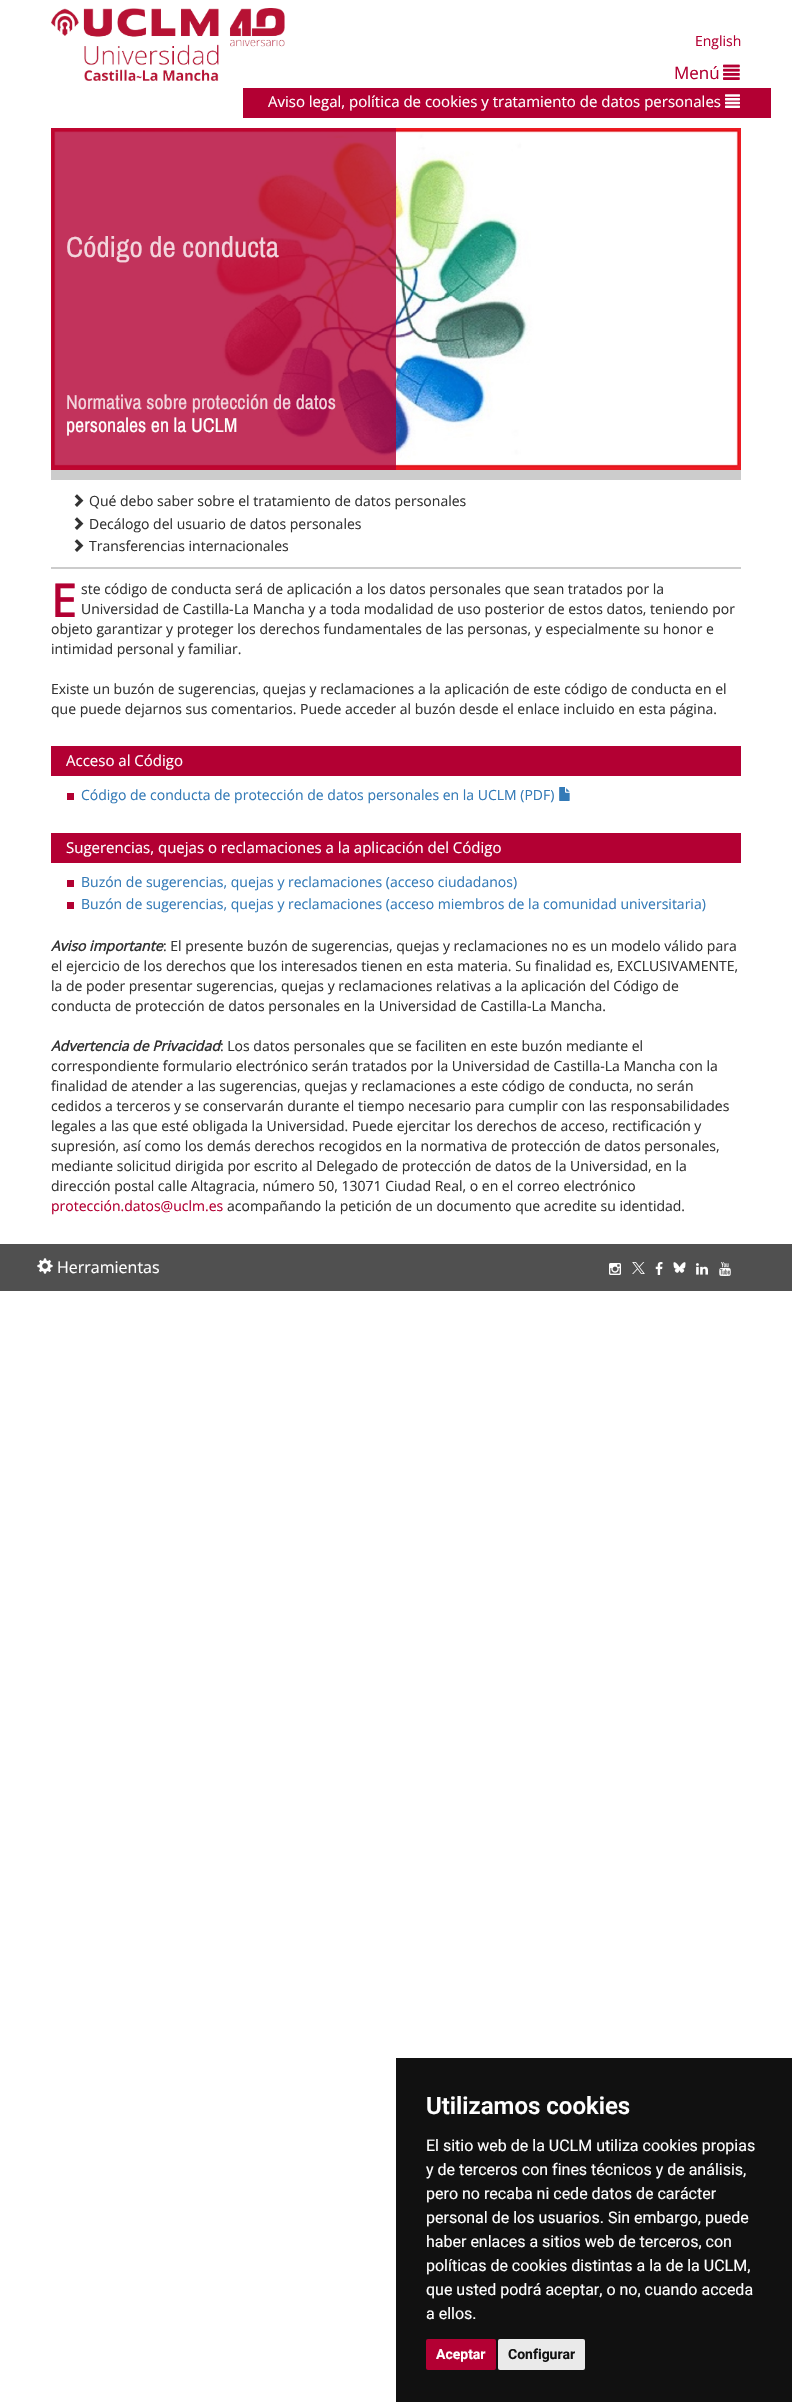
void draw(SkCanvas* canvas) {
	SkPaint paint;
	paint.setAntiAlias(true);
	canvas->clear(0xffffffff);
	canvas->drawImageRect(SkImages::DeferredFromEncodedData(SkData::MakeFromFileName("img1.png")), SkRect::MakeXYWH(51, 8, 234, 73), SkSamplingOptions());
	SkFont f1(fontMgr->matchFamilyStyle("Open Sans", SkFontStyle::Normal()), 14);
	f1.setSubpixel(true);
	paint.setColor(0xffb30033);
	canvas->drawString("English", 695, 46, f1, paint);
	SkFont f2(fontMgr->matchFamilyStyle("Open Sans", SkFontStyle::Normal()), 17);
	f2.setSubpixel(true);
	canvas->drawString("Menú", 674, 79, f2, paint);
	canvas->drawImageRect(SkImages::DeferredFromEncodedData(SkData::MakeFromFileName("img2.png")), SkRect::MakeXYWH(723, 64, 17, 16), SkSamplingOptions());
	canvas->drawRect(SkRect::MakeXYWH(243, 88, 528, 30), paint);
	SkFont f3(fontMgr->matchFamilyStyle("Open Sans", SkFontStyle::Normal()), 15);
	f3.setSubpixel(true);
	paint.setColor(0xffffffff);
	canvas->drawString("Aviso legal, política de cookies y tratamiento de datos personales", 268, 107, f3, paint);
	canvas->drawImageRect(SkImages::DeferredFromEncodedData(SkData::MakeFromFileName("img3.png")), SkRect::MakeXYWH(725, 94, 15, 14), SkSamplingOptions());
	canvas->drawImageRect(SkImages::DeferredFromEncodedData(SkData::MakeFromFileName("img4.png")), SkRect::MakeXYWH(51, 128, 690, 342), SkSamplingOptions());
	paint.setColor(0xccb30033);
	canvas->drawRect(SkRect::MakeXYWH(51, 128, 345, 342), paint);
	SkFont f4(fontMgr->matchFamilyStyle("Archivo Narrow", SkFontStyle::Normal()), 29);
	f4.setSubpixel(true);
	paint.setColor(0xfff3d5dd);
	canvas->drawString("Código de conducta", 66, 257, f4, paint);
	SkFont f5(fontMgr->matchFamilyStyle("Archivo Narrow", SkFontStyle::Normal()), 20);
	f5.setSubpixel(true);
	canvas->drawString("Normativa sobre protección de datos", 66, 409, f5, paint);
	paint.setColor(0xffffffff);
	canvas->drawString("personales en la UCLM", 66, 432, f5, paint);
	paint.setColor(0xffcccccc);
	canvas->drawRect(SkRect::MakeXYWH(51, 470, 690, 10), paint);
	canvas->drawRect(SkRect::MakeXYWH(51, 567, 690, 2), paint);
	canvas->drawImageRect(SkImages::DeferredFromEncodedData(SkData::MakeFromFileName("img5.png")), SkRect::MakeXYWH(74, 494, 10, 13), SkSamplingOptions());
	paint.setColor(0xff333333);
	canvas->drawString("Qué debo saber sobre el tratamiento de datos personales", 89, 506, f1, paint);
	canvas->drawImageRect(SkImages::DeferredFromEncodedData(SkData::MakeFromFileName("img5.png")), SkRect::MakeXYWH(74, 517, 10, 13), SkSamplingOptions());
	canvas->drawString("Decálogo del usuario de datos personales", 89, 529, f1, paint);
	canvas->drawImageRect(SkImages::DeferredFromEncodedData(SkData::MakeFromFileName("img5.png")), SkRect::MakeXYWH(74, 539, 10, 13), SkSamplingOptions());
	canvas->drawString("Transferencias internacionales", 89, 551, f1, paint);
	SkFont f6(fontMgr->matchFamilyStyle("Open Sans", SkFontStyle::Bold()), 45);
	f6.setSubpixel(true);
	paint.setColor(0xffb30033);
	canvas->drawString("E", 51, 617, f6, paint);
	paint.setColor(0xff333333);
	canvas->drawString("ste código de conducta será de aplicación a los datos personales que sean tratados por la", 81, 594, f1, paint);
	canvas->drawString("Universidad de Castilla", 81, 614, f1, paint);
	SkFont f7(fontMgr->matchFamilyStyle("Liberation Sans", SkFontStyle::Normal()), 14);
	f7.setSubpixel(true);
	canvas->drawString("‐", 229, 614, f7, paint);
	canvas->drawString("La Mancha y a toda modalidad de uso posterior de estos datos, teniendo por", 234, 614, f1, paint);
	canvas->drawString("objeto garantizar y proteger los derechos fundamentales de las personas, y especialmente su honor e", 51, 634, f1, paint);
	canvas->drawString("intimidad personal y familiar.", 51, 654, f1, paint);
	canvas->drawString("Existe un buzón de sugerencias, quejas y reclamaciones a la aplicación de este código de conducta en el", 51, 694, f1, paint);
	canvas->drawString("que puede dejarnos sus comentarios. Puede acceder al buzón desde el enlace incluido en esta página.", 51, 714, f1, paint);
	paint.setColor(0xffb30033);
	canvas->drawRect(SkRect::MakeXYWH(51, 746, 690, 30), paint);
	paint.setColor(0xffffffff);
	canvas->drawString("Acceso al Código", 66, 766, f3, paint);
	paint.setColor(0xffb20032);
	canvas->drawRect(SkRect::MakeXYWH(67, 793, 7, 7), paint);
	paint.setColor(0xff337ab7);
	canvas->drawString("Código de conducta de protección de datos personales en la UCLM (PDF)", 81, 800, f1, paint);
	canvas->drawImageRect(SkImages::DeferredFromEncodedData(SkData::MakeFromFileName("img6.png")), SkRect::MakeXYWH(559, 787, 11, 14), SkSamplingOptions());
	paint.setColor(0xffb30033);
	canvas->drawRect(SkRect::MakeXYWH(51, 833, 690, 30), paint);
	paint.setColor(0xffffffff);
	canvas->drawString("Sugerencias, quejas o reclamaciones a la aplicación del Código", 66, 853, f3, paint);
	paint.setColor(0xffb20032);
	canvas->drawRect(SkRect::MakeXYWH(67, 880, 7, 7), paint);
	paint.setColor(0xff337ab7);
	canvas->drawString("Buzón de sugerencias, quejas y reclamaciones (acceso ciudadanos)", 81, 887, f1, paint);
	paint.setColor(0xffb20032);
	canvas->drawRect(SkRect::MakeXYWH(67, 902, 7, 7), paint);
	paint.setColor(0xff337ab7);
	canvas->drawString("Buzón de sugerencias, quejas y reclamaciones (acceso miembros de la comunidad universitaria)", 81, 909, f1, paint);
	SkFont f8(fontMgr->matchFamilyStyle("Open Sans", SkFontStyle::BoldItalic()), 14);
	f8.setSubpixel(true);
	paint.setColor(0xff333333);
	canvas->drawString("Aviso importante", 51, 951, f8, paint);
	canvas->drawString(": El presente buzón de sugerencias, quejas y reclamaciones no es un modelo válido para", 163, 951, f1, paint);
	canvas->drawString("el ejercicio de los derechos que los interesados tienen en esta materia. Su finalidad es, EXCLUSIVAMENTE,", 51, 971, f1, paint);
	canvas->drawString("la de poder presentar sugerencias, quejas y reclamaciones relativas a la aplicación del Código de", 51, 991, f1, paint);
	canvas->drawString("conducta de protección de datos personales en la Universidad de Castilla-La Mancha.", 51, 1011, f1, paint);
	canvas->drawString("Advertencia de Privacidad", 51, 1051, f8, paint);
	canvas->drawString(": Los datos personales que se faciliten en este buzón mediante el", 220, 1051, f1, paint);
	canvas->drawString("correspondiente formulario electrónico serán tratados por la Universidad de Castilla-La Mancha con la", 51, 1071, f1, paint);
	canvas->drawString("finalidad de atender a las sugerencias, quejas y reclamaciones a este código de conducta, no serán", 51, 1091, f1, paint);
	canvas->drawString("cedidos a terceros y se conservarán durante el tiempo necesario para cumplir con las responsabilidades", 51, 1111, f1, paint);
	canvas->drawString("legales a las que esté obligada la Universidad. Puede ejercitar los derechos de acceso, rectificación y", 51, 1131, f1, paint);
	canvas->drawString("supresión, así como los demás derechos recogidos en la normativa de protección de datos personales,", 51, 1151, f1, paint);
	canvas->drawString("mediante solicitud dirigida por escrito al Delegado de protección de datos de la Universidad, en la", 51, 1171, f1, paint);
	canvas->drawString("dirección postal calle Altagracia, número 50, 13071 Ciudad Real, o en el correo electrónico", 51, 1191, f1, paint);
	paint.setColor(0xffb30033);
	canvas->drawString("protección.datos@uclm.es", 51, 1211, f1, paint);
	paint.setColor(0xff333333);
	canvas->drawString("acompañando la petición de un documento que acredite su identidad.", 227, 1211, f1, paint);
	paint.setColor(0xff505050);
	canvas->drawRect(SkRect::MakeXYWH(0, 1244, 792, 47), paint);
	canvas->drawImageRect(SkImages::DeferredFromEncodedData(SkData::MakeFromFileName("img7.png")), SkRect::MakeXYWH(37, 1258, 16, 16), SkSamplingOptions());
	SkFont f9(fontMgr->matchFamilyStyle("Open Sans", SkFontStyle::Normal()), 16);
	f9.setSubpixel(true);
	paint.setColor(0xffffffff);
	canvas->drawString("Herramientas", 57, 1273, f9, paint);
	canvas->drawImageRect(SkImages::DeferredFromEncodedData(SkData::MakeFromFileName("img8.png")), SkRect::MakeXYWH(609, 1263, 12, 12), SkSamplingOptions());
	canvas->drawImageRect(SkImages::DeferredFromEncodedData(SkData::MakeFromFileName("img9.png")), SkRect::MakeXYWH(632, 1262, 13, 12), SkSamplingOptions());
	canvas->drawImageRect(SkImages::DeferredFromEncodedData(SkData::MakeFromFileName("img10.png")), SkRect::MakeXYWH(655, 1262, 8, 13), SkSamplingOptions());
	canvas->drawImageRect(SkImages::DeferredFromEncodedData(SkData::MakeFromFileName("img11.png")), SkRect::MakeXYWH(673, 1262, 13, 11), SkSamplingOptions());
	canvas->drawImageRect(SkImages::DeferredFromEncodedData(SkData::MakeFromFileName("img12.png")), SkRect::MakeXYWH(696, 1263, 12, 12), SkSamplingOptions());
	canvas->drawImageRect(SkImages::DeferredFromEncodedData(SkData::MakeFromFileName("img13.png")), SkRect::MakeXYWH(719, 1262, 12, 14), SkSamplingOptions());
	paint.setColor(0xff111111);
	canvas->drawRect(SkRect::MakeXYWH(396, 2058, 396, 344), paint);
	SkFont f10(fontMgr->matchFamilyStyle("Roboto", SkFontStyle(600, SkFontStyle::kNormal_Width, SkFontStyle::kUpright_Slant)), 24);
	f10.setSubpixel(true);
	paint.setColor(0xffffffff);
	canvas->drawString("Utilizamos cookies", 426, 2114, f10, paint);
	SkFont f11(fontMgr->matchFamilyStyle("Roboto", SkFontStyle::Normal()), 16);
	f11.setSubpixel(true);
	canvas->drawString("El sitio web de la UCLM utiliza cookies propias", 426, 2151, f11, paint);
	canvas->drawString("y de terceros con fines técnicos y de análisis,", 426, 2175, f11, paint);
	canvas->drawString("pero no recaba ni cede datos de carácter", 426, 2199, f11, paint);
	canvas->drawString("personal de los usuarios. Sin embargo, puede", 426, 2223, f11, paint);
	canvas->drawString("haber enlaces a sitios web de terceros, con", 426, 2247, f11, paint);
	canvas->drawString("políticas de cookies distintas a la de la UCLM,", 426, 2271, f11, paint);
	canvas->drawString("que usted podrá aceptar, o no, cuando acceda", 426, 2295, f11, paint);
	canvas->drawString("a ellos.", 426, 2319, f11, paint);
	paint.setColor(0xffb30033);
	canvas->drawRoundRect(SkRect::MakeXYWH(426, 2339, 70, 31), 2, 2, paint);
	SkFont f12(fontMgr->matchFamilyStyle("Roboto", SkFontStyle::Bold()), 14);
	f12.setSubpixel(true);
	paint.setColor(0xffffffff);
	canvas->drawString("Aceptar", 436, 2359, f12, paint);
	paint.setColor(0xffeaeaea);
	canvas->drawRoundRect(SkRect::MakeXYWH(498, 2339, 87, 31), 2, 2, paint);
	paint.setColor(0xff111111);
	canvas->drawString("Configurar", 508, 2359, f12, paint);
}
